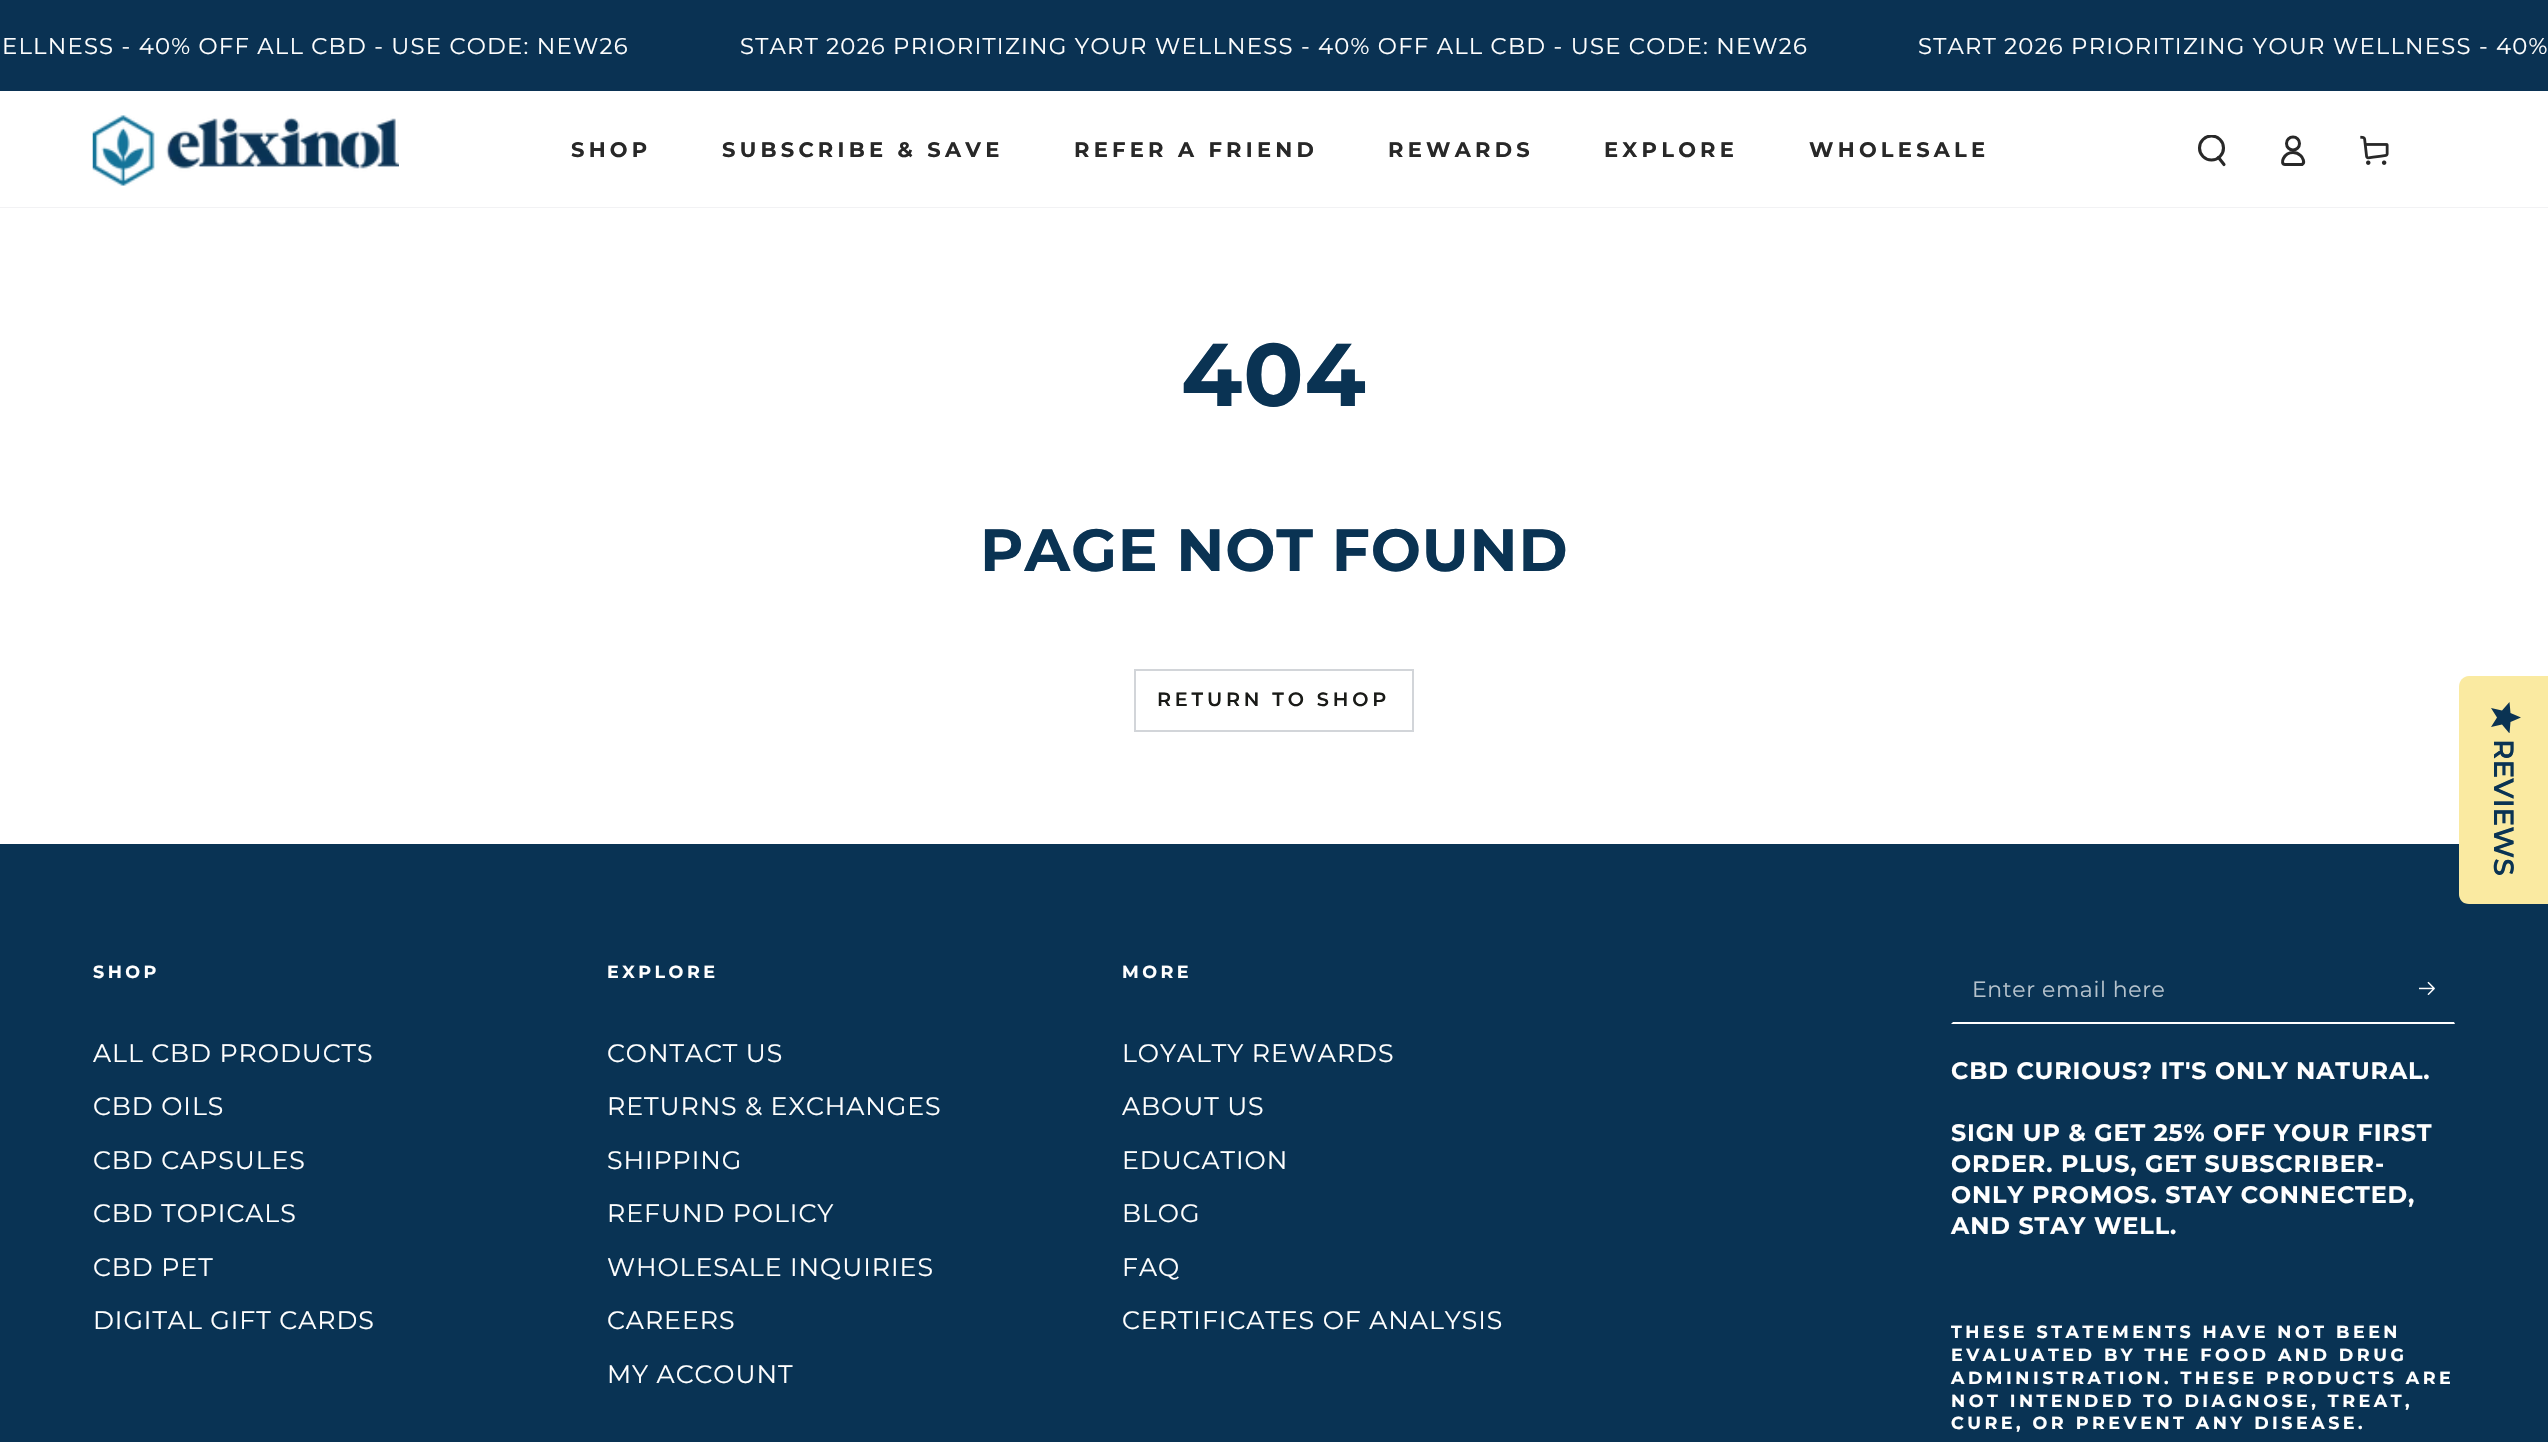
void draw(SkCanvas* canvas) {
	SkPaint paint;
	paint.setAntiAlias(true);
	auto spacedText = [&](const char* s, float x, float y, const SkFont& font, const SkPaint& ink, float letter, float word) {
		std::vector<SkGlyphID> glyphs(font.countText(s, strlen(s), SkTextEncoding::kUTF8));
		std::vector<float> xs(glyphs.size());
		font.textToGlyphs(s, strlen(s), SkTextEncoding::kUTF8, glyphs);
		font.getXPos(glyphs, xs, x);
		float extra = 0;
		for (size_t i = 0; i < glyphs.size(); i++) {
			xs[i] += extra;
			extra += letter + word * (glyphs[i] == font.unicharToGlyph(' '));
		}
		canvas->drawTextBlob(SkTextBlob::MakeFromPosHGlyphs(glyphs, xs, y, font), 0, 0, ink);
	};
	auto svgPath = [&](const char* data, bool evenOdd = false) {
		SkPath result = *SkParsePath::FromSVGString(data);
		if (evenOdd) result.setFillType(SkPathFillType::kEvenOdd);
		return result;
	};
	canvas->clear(0xffffffff);
	paint.setColor(0xff0a3253);
	canvas->drawRect(SkRect::MakeXYWH(0, 0, 2548, 91), paint);
	SkFont f1(fontMgr->matchFamilyStyle("Montserrat", SkFontStyle(100, SkFontStyle::kNormal_Width, SkFontStyle::kUpright_Slant)), 22.75);
	f1.setSubpixel(true);
	paint.setColor(0xffffffff);
	spacedText("ELLNESS - 40% OFF ALL CBD - USE CODE: NEW26", 2, 54, f1, paint, 1.23, 0);
	spacedText("START 2026 PRIORITIZING YOUR WELLNESS - 40% OFF ALL CBD - USE CODE: NEW26", 740, 54, f1, paint, 1.23, 0);
	spacedText("START 2026 PRIORITIZING YOUR WELLNESS - 40%", 1918, 54, f1, paint, 1.23, 0);
	paint.setColor(0xfff2f2f4);
	canvas->drawRect(SkRect::MakeXYWH(0, 207, 2548, 1), paint);
	canvas->drawImageRect(SkImages::DeferredFromEncodedData(SkData::MakeFromFileName("img1.png")), SkRect::MakeXYWH(92, 115, 307, 71), SkSamplingOptions());
	SkFont f2(fontMgr->matchFamilyStyle("Montserrat", SkFontStyle::Bold()), 21);
	f2.setSubpixel(true);
	paint.setColor(0xff282828);
	spacedText("SHOP", 571, 157, f2, paint, 4.25, 0);
	spacedText("SUBSCRIBE & SAVE", 722, 157, f2, paint, 4.25, 0);
	spacedText("REFER A FRIEND", 1074, 157, f2, paint, 4.25, 0);
	spacedText("REWARDS", 1388, 157, f2, paint, 4.25, 0);
	spacedText("EXPLORE", 1604, 157, f2, paint, 4.25, 0);
	spacedText("WHOLESALE", 1809, 157, f2, paint, 4.25, 0);
	canvas->save();
	canvas->clipRect(SkRect::MakeXYWH(2196, 135, 32, 31));
	paint.setStroke(true);
	paint.setStrokeWidth(3.1);
	canvas->drawCircle(2211.5, 148, 12, paint);
	canvas->restore();
	paint.setStrokeCap(SkPaint::kRound_Cap);
	canvas->drawPath(svgPath("M2218.5 157.5L2224 164.5"), paint);
	paint.setStrokeWidth(3);
	paint.setStrokeCap(SkPaint::kButt_Cap);
	canvas->drawPath(svgPath("M2293 152.5C2283.5 152.5 2279.5 164.5 2285 164.5H2302C2305.5 163 2302.5 157 2300.5 155.5C2298.5 153.5 2296 152.5 2293 152.5Z"), paint);
	canvas->drawCircle(2293, 143.5, 6.5, paint);
	canvas->drawImageRect(SkImages::DeferredFromEncodedData(SkData::MakeFromFileName("img2.png")), SkRect::MakeXYWH(2360, 135, 29, 30), SkSamplingOptions());
	SkFont f3(fontMgr->matchFamilyStyle("Montserrat", SkFontStyle::Bold()), 89);
	f3.setSubpixel(true);
	paint.setStroke(false);
	paint.setColor(0xff0a3353);
	spacedText("404", 1181, 406, f3, paint, 0.9, 0);
	SkFont f4(fontMgr->matchFamilyStyle("Montserrat", SkFontStyle::Bold()), 59.5);
	f4.setSubpixel(true);
	spacedText("PAGE NOT FOUND", 980, 571, f4, paint, 0.9, 0);
	paint.setStroke(true);
	paint.setStrokeWidth(2);
	paint.setColor(0xffd2d5d9);
	canvas->drawRect(SkRect::MakeXYWH(1135, 670, 278, 61), paint);
	SkFont f5(fontMgr->matchFamilyStyle("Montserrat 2", SkFontStyle(100, SkFontStyle::kNormal_Width, SkFontStyle::kUpright_Slant)), 19.25);
	f5.setSubpixel(true);
	paint.setStroke(false);
	paint.setColor(0xff1a1b18);
	spacedText("RETURN TO SHOP", 1157, 706, f5, paint, 3.8, 0);
	paint.setColor(0xff093354);
	canvas->drawRect(SkRect::MakeXYWH(0, 844, 2548, 598), paint);
	SkFont f6(fontMgr->matchFamilyStyle("Montserrat", SkFontStyle::Bold()), 17.5);
	f6.setSubpixel(true);
	paint.setColor(0xffffffff);
	spacedText("SHOP", 93, 978, f6, paint, 3.5, 0);
	SkFont f7(fontMgr->matchFamilyStyle("Montserrat", SkFontStyle(100, SkFontStyle::kNormal_Width, SkFontStyle::kUpright_Slant)), 25.25);
	f7.setSubpixel(true);
	spacedText("ALL CBD PRODUCTS", 93, 1062, f7, paint, 0.95, 0);
	spacedText("CBD OILS", 93, 1115, f7, paint, 0.95, 0);
	spacedText("CBD CAPSULES", 93, 1169, f7, paint, 0.95, 0);
	spacedText("CBD TOPICALS", 93, 1222, f7, paint, 0.95, 0);
	spacedText("CBD PET", 93, 1276, f7, paint, 0.95, 0);
	spacedText("DIGITAL GIFT CARDS", 93, 1329, f7, paint, 0.95, 0);
	spacedText("EXPLORE", 607, 978, f6, paint, 3.5, 0);
	spacedText("CONTACT US", 607, 1062, f7, paint, 0.95, 0);
	spacedText("RETURNS & EXCHANGES", 607, 1115, f7, paint, 0.95, 0);
	spacedText("SHIPPING", 607, 1169, f7, paint, 0.95, 0);
	spacedText("REFUND POLICY", 607, 1222, f7, paint, 0.95, 0);
	spacedText("WHOLESALE INQUIRIES", 607, 1276, f7, paint, 0.95, 0);
	spacedText("CAREERS", 607, 1329, f7, paint, 0.95, 0);
	spacedText("MY ACCOUNT", 607, 1383, f7, paint, 0.95, 0);
	spacedText("MORE", 1122, 978, f6, paint, 3.5, 0);
	spacedText("LOYALTY REWARDS", 1122, 1062, f7, paint, 0.95, 0);
	spacedText("ABOUT US", 1122, 1115, f7, paint, 0.95, 0);
	spacedText("EDUCATION", 1122, 1169, f7, paint, 0.95, 0);
	spacedText("BLOG", 1122, 1222, f7, paint, 0.95, 0);
	spacedText("FAQ", 1122, 1276, f7, paint, 0.95, 0);
	spacedText("CERTIFICATES OF ANALYSIS", 1122, 1329, f7, paint, 0.95, 0);
	canvas->drawPath(svgPath("M2455 1024H1951L1953 1022H2454Z"), paint);
	SkFont f8(fontMgr->matchFamilyStyle("Montserrat", SkFontStyle(100, SkFontStyle::kNormal_Width, SkFontStyle::kUpright_Slant)), 22);
	f8.setSubpixel(true);
	paint.setColor(0xffb5c2cc);
	spacedText("Enter email here", 1972, 997, f8, paint, 0.6, 0);
	canvas->drawImageRect(SkImages::DeferredFromEncodedData(SkData::MakeFromFileName("img3.png")), SkRect::MakeXYWH(2419, 981, 16, 14), SkSamplingOptions());
	SkFont f9(fontMgr->matchFamilyStyle("Montserrat", SkFontStyle::Bold()), 23.8);
	f9.setSubpixel(true);
	paint.setColor(0xffffffff);
	spacedText("CBD CURIOUS? IT'S ONLY NATURAL.", 1951, 1079, f9, paint, 0.9, 0);
	spacedText("SIGN UP & GET 25% OFF YOUR FIRST", 1951, 1141, f9, paint, 0.9, 0);
	spacedText("ORDER. PLUS, GET SUBSCRIBER-", 1951, 1172, f9, paint, 0.9, 0);
	spacedText("ONLY PROMOS. STAY CONNECTED,", 1951, 1203, f9, paint, 0.9, 0);
	spacedText("AND STAY WELL.", 1951, 1234, f9, paint, 0.9, 0);
	spacedText("THESE STATEMENTS HAVE NOT BEEN", 1951, 1338, f6, paint, 3.5, 0);
	spacedText("EVALUATED BY THE FOOD AND DRUG", 1951, 1361, f6, paint, 3.5, 0);
	spacedText("ADMINISTRATION. THESE PRODUCTS ARE", 1951, 1384, f6, paint, 3.5, 0);
	spacedText("NOT INTENDED TO DIAGNOSE, TREAT,", 1951, 1407, f6, paint, 3.5, 0);
	spacedText("CURE, OR PREVENT ANY DISEASE.", 1951, 1429, f6, paint, 3.5, 0);
	paint.setColor(0xfffaeaa1);
	canvas->drawPath(svgPath("M2548 676V904H2469C2463 904 2459 900 2459 894V687C2459 681 2463 676 2469 676Z"), paint);
	{
		const SkColor colors[] = {0xff0a3353, 0xffeaeaea};
		const float stops[] = {1, 1};
		const SkPoint ends[] = {{2521, 702}, {2521, 733}};
		paint.setShader(SkGradientShader::MakeLinear(ends, colors, stops, 2, SkTileMode::kClamp));
		paint.setAlpha(255);
	}
	canvas->drawPath(svgPath("M2497 717.5L2491 727L2502 724.5L2509.5 733.5L2510.5 722L2521 717.5L2510.5 713L2509.5 702L2502 710.5L2491 708Z"), paint);
	SkFont f10(fontMgr->matchFamilyStyle("Montserrat 2", SkFontStyle(100, SkFontStyle::kNormal_Width, SkFontStyle::kUpright_Slant)), 28);
	f10.setSubpixel(true);
	paint.setShader(nullptr);
	paint.setColor(0xff0a3353);
	canvas->save();
	canvas->rotate(90, 2494, 739);
	canvas->drawString("REVIEWS", 2494, 739, f10, paint);
	canvas->restore();
}
